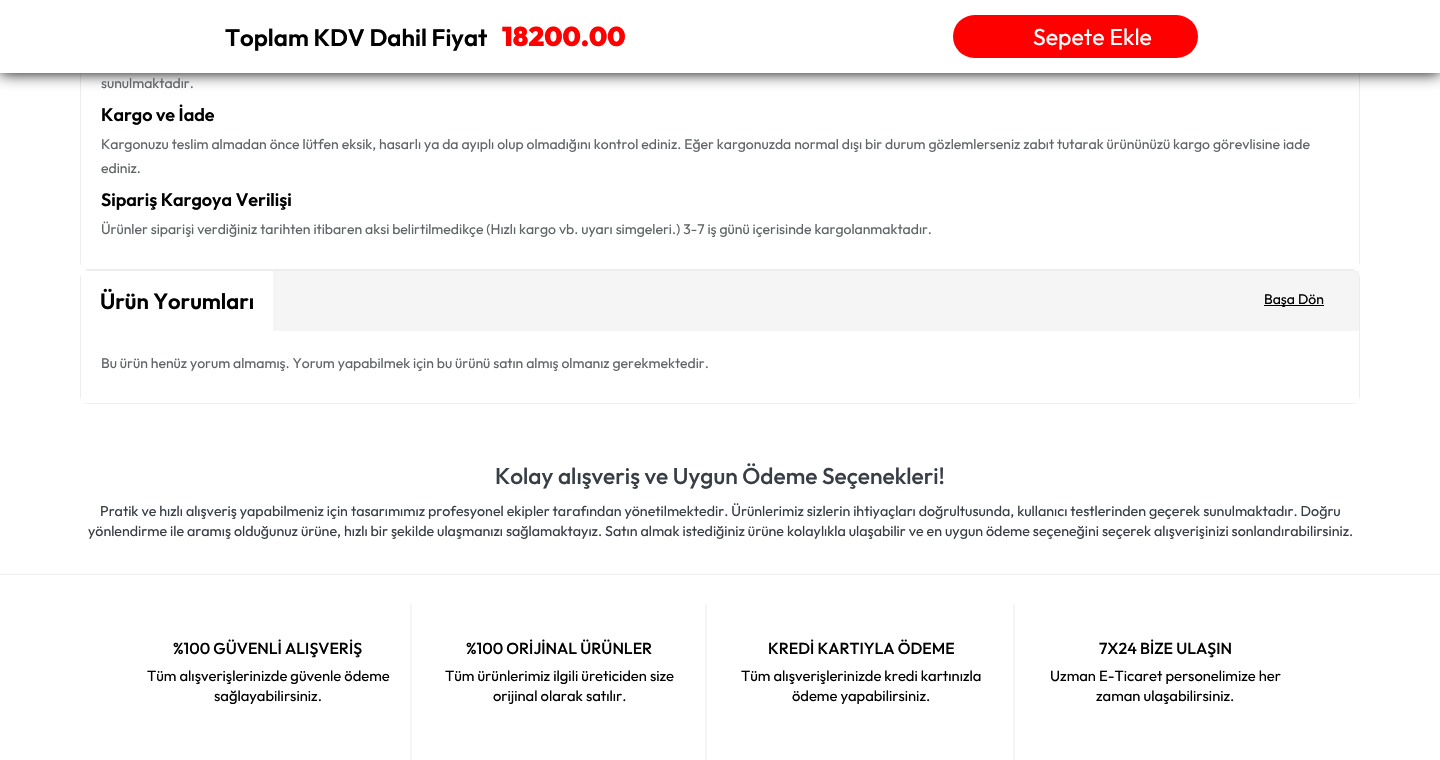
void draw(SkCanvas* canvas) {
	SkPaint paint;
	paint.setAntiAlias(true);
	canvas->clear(0xffffffff);
	paint.setStroke(true);
	paint.setStrokeWidth(1);
	paint.setColor(0xffededed);
	canvas->drawRoundRect(SkRect::MakeXYWH(80.5, -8.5, 1279, 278), 7.5, 7.5, paint);
	paint.setStroke(false);
	paint.setColor(0xff000000);
	paint.setMaskFilter(SkMaskFilter::MakeBlur(kNormal_SkBlurStyle, 7.5));
	canvas->drawRect(SkRect::MakeXYWH(0, 0, 1440, 73), paint);
	paint.setMaskFilter(nullptr);
	paint.setColor(0xffffffff);
	canvas->drawRect(SkRect::MakeXYWH(0, 0, 1440, 73), paint);
	SkFont f1(fontMgr->matchFamilyStyle("Outfit", SkFontStyle(600, SkFontStyle::kNormal_Width, SkFontStyle::kUpright_Slant)), 24);
	f1.setSubpixel(true);
	paint.setColor(0xff000000);
	canvas->drawString("Toplam KDV Dahil Fiyat", 225, 46, f1, paint);
	SkFont f2(fontMgr->matchFamilyStyle("Outfit", SkFontStyle(900, SkFontStyle::kNormal_Width, SkFontStyle::kUpright_Slant)), 27);
	f2.setSubpixel(true);
	paint.setColor(0xffff0000);
	canvas->drawString("18200.00", 502, 46, f2, paint);
	canvas->drawRoundRect(SkRect::MakeXYWH(953, 15, 245, 43), 21.5, 21.5, paint);
	SkFont f3(fontMgr->matchFamilyStyle("Outfit", SkFontStyle::Normal()), 23);
	f3.setSubpixel(true);
	paint.setColor(0xffffffff);
	canvas->drawString("Sepete Ekle", 1033, 45, f3, paint);
	canvas->drawRect(SkRect::MakeXYWH(81, 263, 1278, 6), paint);
	SkFont f4(fontMgr->matchFamilyStyle("Outfit", SkFontStyle::Normal()), 14);
	f4.setSubpixel(true);
	paint.setColor(0xff606466);
	canvas->drawString("sunulmaktadır.", 101, 88, f4, paint);
	SkFont f5(fontMgr->matchFamilyStyle("Outfit", SkFontStyle(600, SkFontStyle::kNormal_Width, SkFontStyle::kUpright_Slant)), 18);
	f5.setSubpixel(true);
	paint.setColor(0xff000000);
	canvas->drawString("Kargo ve İade", 101, 121, f5, paint);
	paint.setColor(0xff606466);
	canvas->drawString("Kargonuzu teslim almadan önce lütfen eksik, hasarlı ya da ayıplı olup olmadığını kontrol ediniz. Eğer kargonuzda normal dışı bir durum gözlemlerseniz zabıt tutarak ürününüzü kargo görevlisine iade", 101, 149, f4, paint);
	canvas->drawString("ediniz.", 101, 173, f4, paint);
	paint.setColor(0xff000000);
	canvas->drawString("Sipariş Kargoya Verilişi", 101, 206, f5, paint);
	paint.setColor(0xff606466);
	canvas->drawString("Ürünler siparişi verdiğiniz tarihten itibaren aksi belirtilmedikçe (Hızlı kargo vb. uyarı simgeleri.) 3-7 iş günü içerisinde kargolanmaktadır.", 101, 234, f4, paint);
	paint.setStroke(true);
	paint.setColor(0xffededed);
	canvas->drawRoundRect(SkRect::MakeXYWH(80.5, 270.5, 1279, 133), 7.5, 7.5, paint);
	paint.setStroke(false);
	paint.setColor(0x9ceeeeee);
	canvas->drawRect(SkRect::MakeXYWH(273, 271, 1086, 60), paint);
	paint.setColor(0xffffffff);
	canvas->drawRect(SkRect::MakeXYWH(81, 271, 6, 6), paint);
	SkFont f6(fontMgr->matchFamilyStyle("Outfit", SkFontStyle(600, SkFontStyle::kNormal_Width, SkFontStyle::kUpright_Slant)), 22);
	f6.setSubpixel(true);
	paint.setColor(0xff000000);
	canvas->drawString("Ürün Yorumları", 100, 309, f6, paint);
	canvas->drawRect(SkRect::MakeXYWH(1264, 305, 60, 1), paint);
	canvas->drawString("Başa Dön", 1264, 304, f4, paint);
	paint.setColor(0xffffffff);
	canvas->drawRect(SkRect::MakeXYWH(81, 397, 1278, 6), paint);
	paint.setColor(0xff606466);
	canvas->drawString("Bu ürün henüz yorum almamış. Yorum yapabilmek için bu ürünü satın almış olmanız gerekmektedir.", 101, 368, f4, paint);
	SkFont f7(fontMgr->matchFamilyStyle("Outfit", SkFontStyle(500, SkFontStyle::kNormal_Width, SkFontStyle::kUpright_Slant)), 22.75);
	f7.setSubpixel(true);
	paint.setColor(0xff393e46);
	canvas->drawString("Kolay alışveriş ve Uygun Ödeme Seçenekleri!", 495, 484, f7, paint);
	SkFont f8(fontMgr->matchFamilyStyle("Outfit", SkFontStyle::Normal()), 14.25);
	f8.setSubpixel(true);
	canvas->drawString("Pratik ve hızlı alışveriş yapabilmeniz için tasarımımız profesyonel ekipler tarafından yönetilmektedir. Ürünlerimiz sizlerin ihtiyaçları doğrultusunda, kullanıcı testlerinden geçerek sunulmaktadır. Doğru", 100, 516, f8, paint);
	canvas->drawString("yönlendirme ile aramış olduğunuz ürüne, hızlı bir şekilde ulaşmanızı sağlamaktayız. Satın almak istediğiniz ürüne kolaylıkla ulaşabilir ve en uygun ödeme seçeneğini seçerek alışverişinizi sonlandırabilirsiniz.", 88, 536, f8, paint);
	paint.setColor(0xffeeeeee);
	canvas->drawRect(SkRect::MakeXYWH(0, 574, 1440, 1), paint);
	SkFont f9(fontMgr->matchFamilyStyle("Outfit", SkFontStyle(500, SkFontStyle::kNormal_Width, SkFontStyle::kUpright_Slant)), 16);
	f9.setSubpixel(true);
	paint.setColor(0xff000000);
	canvas->drawString("%100 GÜVENLİ ALIŞVERİŞ", 173, 654, f9, paint);
	paint.setColor(0xfff5f5f5);
	canvas->drawRoundRect(SkRect::MakeXYWH(410, 604, 2, 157), 1, 1, paint);
	SkFont f10(fontMgr->matchFamilyStyle("Outfit", SkFontStyle::Normal()), 14.75);
	f10.setSubpixel(true);
	paint.setColor(0xff000000);
	canvas->drawString("Tüm alışverişlerinizde güvenle ödeme", 147, 681, f10, paint);
	canvas->drawString("sağlayabilirsiniz.", 214, 701, f10, paint);
	canvas->drawString("%100 ORİJİNAL ÜRÜNLER", 466, 654, f9, paint);
	paint.setColor(0xfff5f5f5);
	canvas->drawRoundRect(SkRect::MakeXYWH(705, 604, 2, 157), 1, 1, paint);
	paint.setColor(0xff000000);
	canvas->drawString("Tüm ürünlerimiz ilgili üreticiden size", 445, 681, f10, paint);
	canvas->drawString("orijinal olarak satılır.", 493, 701, f10, paint);
	canvas->drawString("KREDİ KARTIYLA ÖDEME", 768, 654, f9, paint);
	paint.setColor(0xfff5f5f5);
	canvas->drawRoundRect(SkRect::MakeXYWH(1013, 604, 2, 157), 1, 1, paint);
	paint.setColor(0xff000000);
	canvas->drawString("Tüm alışverişlerinizde kredi kartınızla", 741, 681, f10, paint);
	canvas->drawString("ödeme yapabilirsiniz.", 792, 701, f10, paint);
	canvas->drawString("7X24 BİZE ULAŞIN", 1099, 654, f9, paint);
	canvas->drawString("Uzman E-Ticaret personelimize her", 1050, 681, f10, paint);
	canvas->drawString("zaman ulaşabilirsiniz.", 1096, 701, f10, paint);
}
